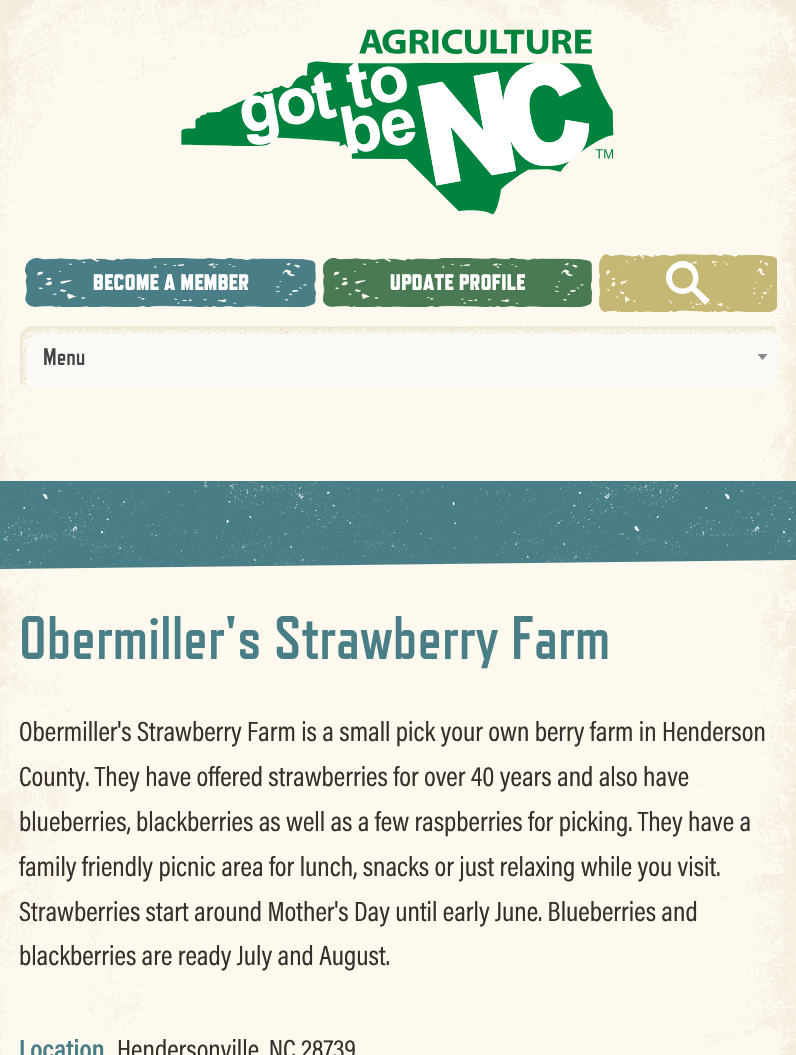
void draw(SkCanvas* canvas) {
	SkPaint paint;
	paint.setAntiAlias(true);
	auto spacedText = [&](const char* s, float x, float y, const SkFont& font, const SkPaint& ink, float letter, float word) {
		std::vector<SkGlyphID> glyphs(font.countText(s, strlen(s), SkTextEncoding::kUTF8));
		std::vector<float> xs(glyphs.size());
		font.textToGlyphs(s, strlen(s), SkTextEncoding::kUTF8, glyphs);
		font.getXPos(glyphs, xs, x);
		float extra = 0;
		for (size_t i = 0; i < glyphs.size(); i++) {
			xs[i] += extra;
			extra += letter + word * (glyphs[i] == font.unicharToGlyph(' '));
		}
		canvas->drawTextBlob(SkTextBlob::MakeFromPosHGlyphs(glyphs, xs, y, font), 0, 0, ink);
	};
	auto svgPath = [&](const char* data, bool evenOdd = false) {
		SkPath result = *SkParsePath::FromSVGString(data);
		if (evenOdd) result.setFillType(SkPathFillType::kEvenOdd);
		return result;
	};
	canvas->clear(0xfffdf9ef);
	canvas->drawImageRect(SkImages::DeferredFromEncodedData(SkData::MakeFromFileName("img1.png")), SkRect::MakeXYWH(0, 0, 796, 1055), SkSamplingOptions());
	canvas->drawImageRect(SkImages::DeferredFromEncodedData(SkData::MakeFromFileName("img2.png")), SkRect::MakeXYWH(181, 29, 433, 186), SkSamplingOptions());
	canvas->drawImageRect(SkImages::DeferredFromEncodedData(SkData::MakeFromFileName("img3.png")), SkRect::MakeXYWH(25, 258, 291, 50), SkSamplingOptions());
	SkFont f1(fontMgr->matchFamilyStyle("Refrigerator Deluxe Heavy", SkFontStyle(900, SkFontStyle::kNormal_Width, SkFontStyle::kUpright_Slant)), 22.5);
	f1.setSubpixel(true);
	paint.setColor(0xffffffff);
	spacedText("BECOME A MEMBER", 93, 290, f1, paint, 0.4, 0);
	canvas->drawImageRect(SkImages::DeferredFromEncodedData(SkData::MakeFromFileName("img4.png")), SkRect::MakeXYWH(322, 258, 271, 50), SkSamplingOptions());
	spacedText("UPDATE PROFILE", 390, 290, f1, paint, 0.4, 0);
	canvas->drawImageRect(SkImages::DeferredFromEncodedData(SkData::MakeFromFileName("img5.png")), SkRect::MakeXYWH(599, 254, 179, 59), SkSamplingOptions());
	canvas->drawPath(svgPath("M683 261C678 261 674 263 671 266C657 280 675 302 692 291L705 305L710 300L696 287C703 276 695 261 683 261ZM693 278C693 292 672 292 672 278C672 264 693 264 693 278Z"), paint);
	paint.setColor(0xfffbf9f6);
	canvas->drawRoundRect(SkRect::MakeXYWH(19, 325, 759, 63), 9, 9, paint);
	canvas->drawImageRect(SkImages::DeferredFromEncodedData(SkData::MakeFromFileName("img6.png")), SkRect::MakeXYWH(20, 326, 757, 61), SkSamplingOptions());
	SkFont f2(fontMgr->matchFamilyStyle("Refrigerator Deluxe", SkFontStyle::Bold()), 24);
	f2.setSubpixel(true);
	paint.setColor(0xff444444);
	canvas->drawString("Menu", 43, 365, f2, paint);
	paint.setColor(0xff888888);
	canvas->drawPath(svgPath("M757.5 354H767.5L762.5 360Z"), paint);
	paint.setColor(0xff4a7e87);
	canvas->drawRect(SkRect::MakeXYWH(0, 481, 796, 63), paint);
	canvas->drawImageRect(SkImages::DeferredFromEncodedData(SkData::MakeFromFileName("img7.png")), SkRect::MakeXYWH(0, 481, 796, 63), SkSamplingOptions());
	canvas->drawPath(svgPath("M0 544L796 535V560L0 569Z"), paint);
	canvas->drawImageRect(SkImages::DeferredFromEncodedData(SkData::MakeFromFileName("img8.png")), SkRect::MakeXYWH(0, 536, 796, 33), SkSamplingOptions());
	SkFont f3(fontMgr->matchFamilyStyle("Refrigerator Deluxe", SkFontStyle::Bold()), 61.5);
	f3.setSubpixel(true);
	canvas->drawString("Obermiller's Strawberry Farm", 19, 659, f3, paint);
	SkFont f4(fontMgr->matchFamilyStyle("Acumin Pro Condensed", SkFontStyle::Normal()), 28);
	f4.setSubpixel(true);
	paint.setColor(0xff362f2d);
	canvas->drawString("Obermiller's Strawberry Farm is a small pick your own berry farm in Henderson", 19, 741, f4, paint);
	canvas->drawString("County. They have offered strawberries for over 40 years and also have", 19, 786, f4, paint);
	canvas->drawString("blueberries, blackberries as well as a few raspberries for picking. They have a", 19, 831, f4, paint);
	canvas->drawString("family friendly picnic area for lunch, snacks or just relaxing while you visit.", 19, 876, f4, paint);
	canvas->drawString("Strawberries start around Mother's Day until early June. Blueberries and", 19, 921, f4, paint);
	canvas->drawString("blackberries are ready July and August.", 19, 965, f4, paint);
	SkFont f5(fontMgr->matchFamilyStyle("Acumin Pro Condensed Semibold", SkFontStyle(600, SkFontStyle::kNormal_Width, SkFontStyle::kUpright_Slant)), 28);
	f5.setSubpixel(true);
	paint.setColor(0xff4a7e87);
	canvas->drawString("Location", 19, 1059, f5, paint);
	paint.setColor(0xff362f2d);
	canvas->drawString("Hendersonville, NC 28739", 117, 1059, f4, paint);
}
